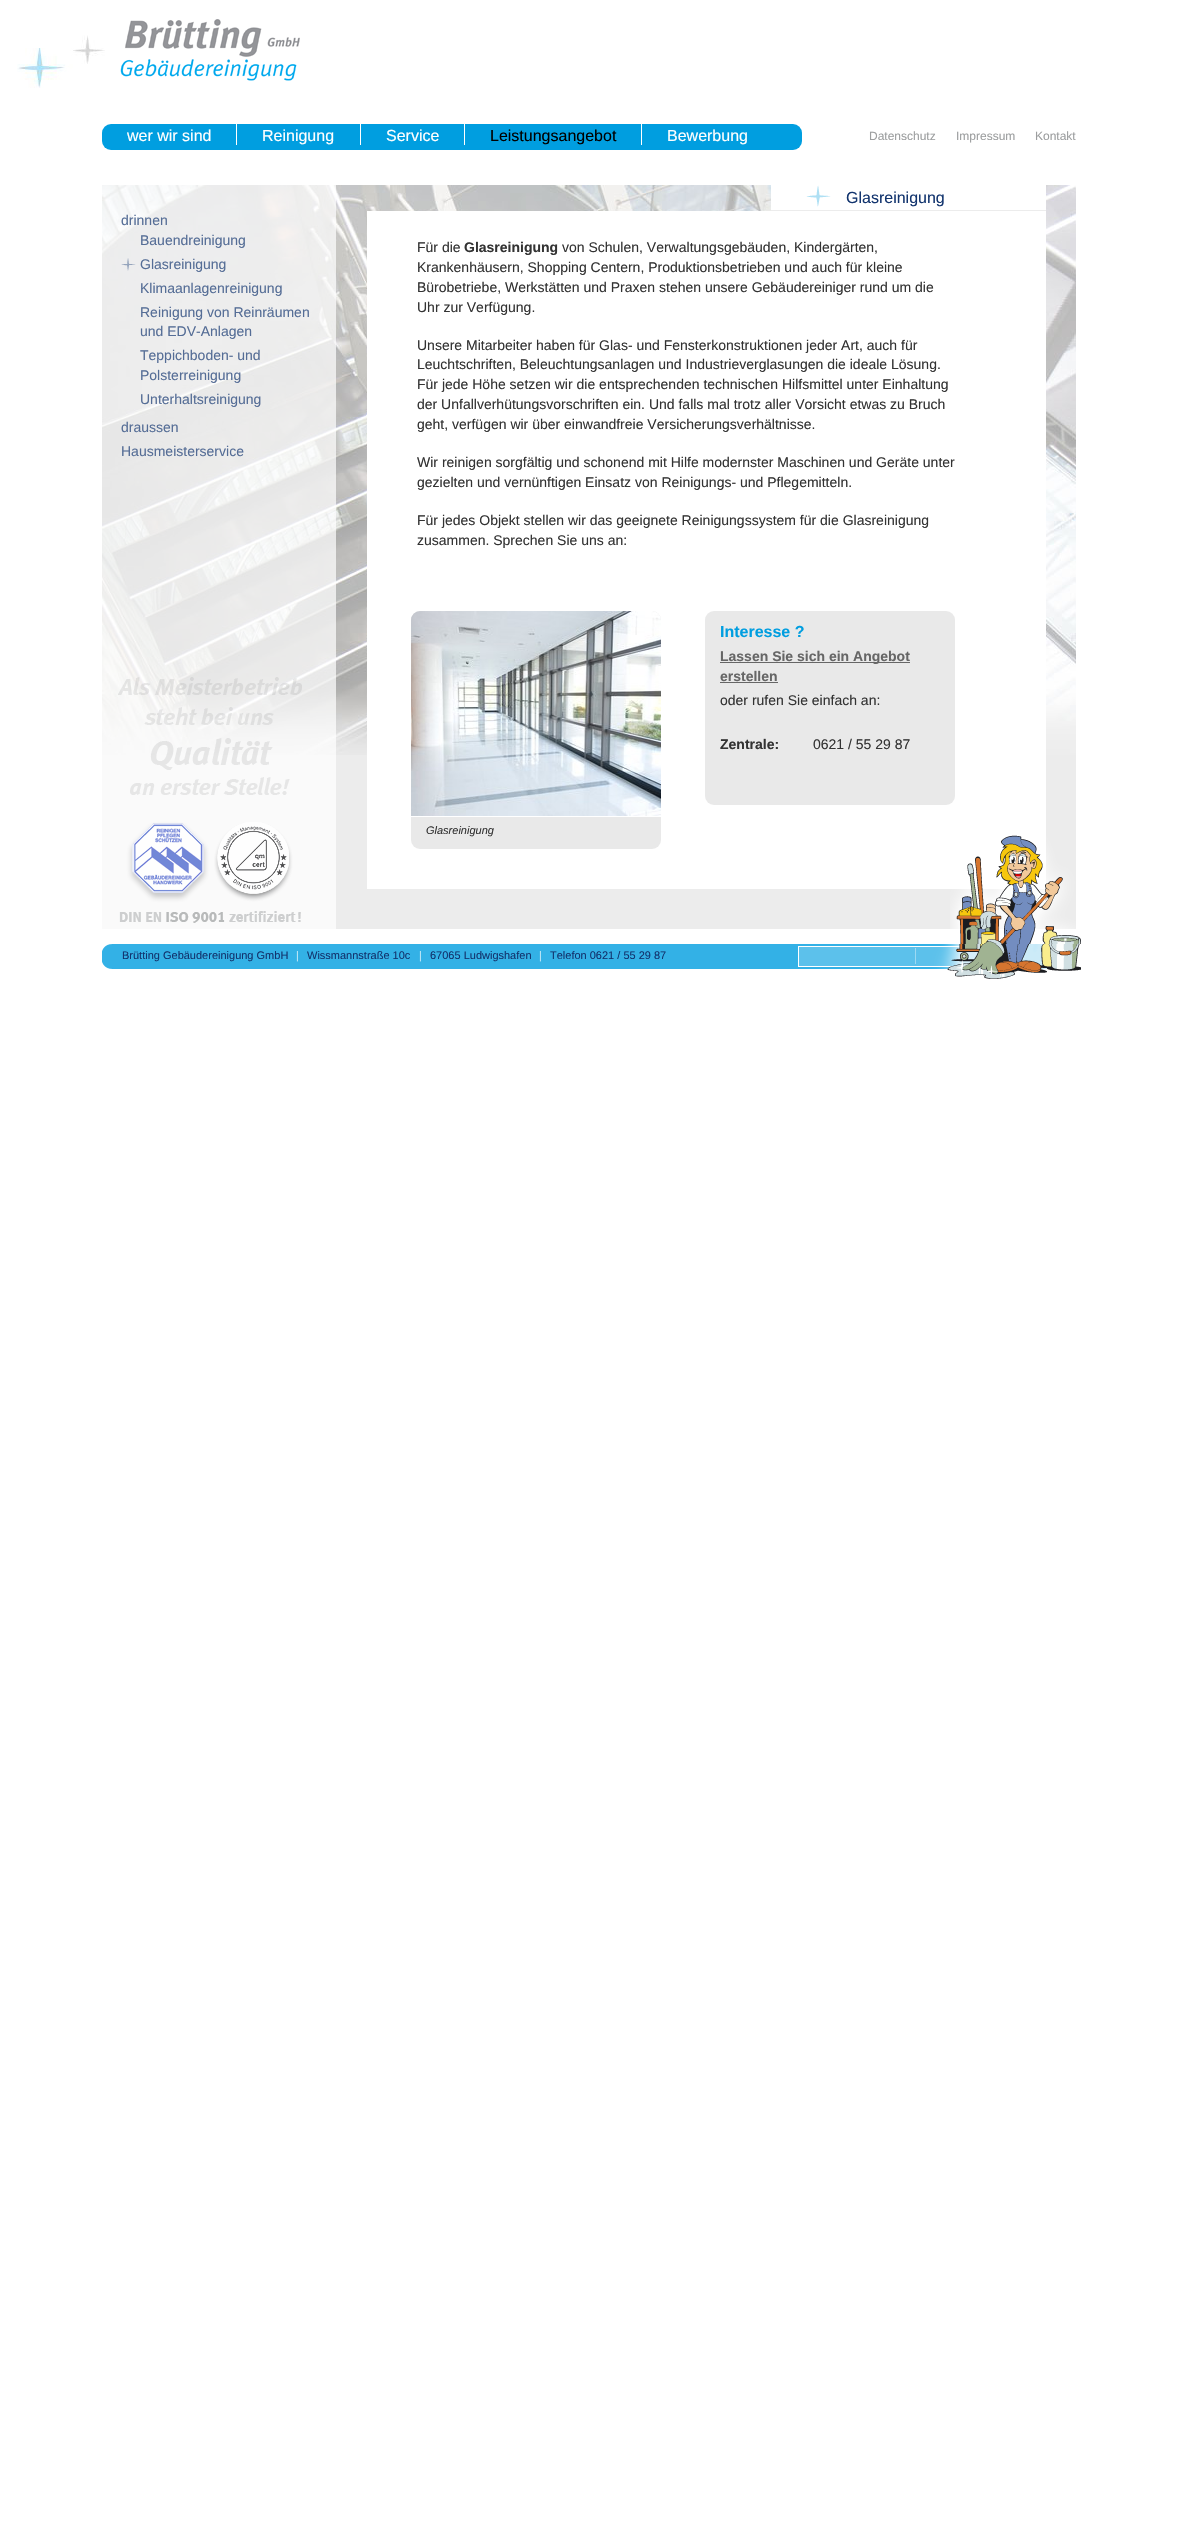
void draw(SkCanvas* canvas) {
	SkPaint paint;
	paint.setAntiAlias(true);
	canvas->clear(0xffffffff);
	canvas->drawImageRect(SkImages::DeferredFromEncodedData(SkData::MakeFromFileName("img1.png")), SkRect::MakeXYWH(17, 35, 88, 53), SkSamplingOptions());
	canvas->drawImageRect(SkImages::DeferredFromEncodedData(SkData::MakeFromFileName("img2.png")), SkRect::MakeXYWH(120, 19, 180, 62), SkSamplingOptions());
	paint.setColor(0xff009ee0);
	canvas->drawRoundRect(SkRect::MakeXYWH(102, 124, 700, 26), 9, 9, paint);
	SkFont f1(fontMgr->matchFamilyStyle("Liberation Sans", SkFontStyle::Normal()), 16);
	f1.setSubpixel(true);
	paint.setColor(0xffffffff);
	canvas->drawString("wer wir sind", 127, 141, f1, paint);
	canvas->drawRect(SkRect::MakeXYWH(236, 124, 1, 21), paint);
	canvas->drawString("Reinigung", 262, 141, f1, paint);
	canvas->drawRect(SkRect::MakeXYWH(360, 124, 1, 21), paint);
	canvas->drawString("Service", 386, 141, f1, paint);
	canvas->drawRect(SkRect::MakeXYWH(464, 124, 1, 21), paint);
	paint.setColor(0xff000000);
	canvas->drawString("Leistungsangebot", 490, 141, f1, paint);
	paint.setColor(0xffffffff);
	canvas->drawRect(SkRect::MakeXYWH(641, 124, 1, 21), paint);
	canvas->drawString("Bewerbung", 667, 141, f1, paint);
	SkFont f2(fontMgr->matchFamilyStyle("Liberation Sans", SkFontStyle::Normal()), 12);
	f2.setSubpixel(true);
	paint.setColor(0xff9c9e9f);
	canvas->drawString("Datenschutz", 869, 140, f2, paint);
	canvas->drawString("Impressum", 956, 140, f2, paint);
	canvas->drawString("Kontakt", 1035, 140, f2, paint);
	paint.setColor(0xffececec);
	canvas->drawRect(SkRect::MakeXYWH(102, 755, 974, 174), paint);
	canvas->drawImageRect(SkImages::DeferredFromEncodedData(SkData::MakeFromFileName("img3.png")), SkRect::MakeXYWH(102, 185, 974, 570), SkSamplingOptions());
	paint.setColor(0xffffffff);
	canvas->drawRect(SkRect::MakeXYWH(771, 185, 275, 25), paint);
	canvas->drawImageRect(SkImages::DeferredFromEncodedData(SkData::MakeFromFileName("img4.png")), SkRect::MakeXYWH(806, 185, 25, 22), SkSamplingOptions());
	paint.setColor(0xffececec);
	canvas->drawRect(SkRect::MakeXYWH(771, 210, 275, 1), paint);
	paint.setColor(0xff12346e);
	canvas->drawString("Glasreinigung", 846, 203, f1, paint);
	paint.setColor(0xb3ffffff);
	canvas->drawRect(SkRect::MakeXYWH(102, 185, 234, 744), paint);
	canvas->drawImageRect(SkImages::DeferredFromEncodedData(SkData::MakeFromFileName("img5.png")), SkRect::MakeXYWH(118, 677, 184, 246), SkSamplingOptions());
	SkFont f3(fontMgr->matchFamilyStyle("Liberation Sans", SkFontStyle::Normal()), 14);
	f3.setSubpixel(true);
	paint.setColor(0xff556d96);
	canvas->drawString("drinnen", 121, 225, f3, paint);
	canvas->drawString("Bauendreinigung", 140, 245, f3, paint);
	canvas->drawImageRect(SkImages::DeferredFromEncodedData(SkData::MakeFromFileName("img6.png")), SkRect::MakeXYWH(121, 258, 15, 13), SkSamplingOptions());
	canvas->drawString("Glasreinigung", 140, 269, f3, paint);
	canvas->drawString("Klimaanlagenreinigung", 140, 293, f3, paint);
	canvas->drawString("Reinigung von Reinräumen", 140, 317, f3, paint);
	canvas->drawString("und EDV-Anlagen", 140, 336, f3, paint);
	canvas->drawString("Teppichboden- und", 140, 360, f3, paint);
	canvas->drawString("Polsterreinigung", 140, 380, f3, paint);
	canvas->drawString("Unterhaltsreinigung", 140, 404, f3, paint);
	canvas->drawString("draussen", 121, 432, f3, paint);
	canvas->drawString("Hausmeisterservice", 121, 456, f3, paint);
	paint.setColor(0xffffffff);
	canvas->drawRect(SkRect::MakeXYWH(367, 211, 679, 678), paint);
	paint.setColor(0xff333333);
	canvas->drawString("Für die", 417, 252, f3, paint);
	SkFont f4(fontMgr->matchFamilyStyle("Liberation Sans", SkFontStyle::Bold()), 14);
	f4.setSubpixel(true);
	canvas->drawString("Glasreinigung", 464, 252, f4, paint);
	canvas->drawString("von Schulen, Verwaltungsgebäuden, Kindergärten,", 562, 252, f3, paint);
	canvas->drawString("Krankenhäusern, Shopping Centern, Produktionsbetrieben und auch für kleine", 417, 272, f3, paint);
	canvas->drawString("Bürobetriebe, Werkstätten und Praxen stehen unsere Gebäudereiniger rund um die", 417, 292, f3, paint);
	canvas->drawString("Uhr zur Verfügung.", 417, 312, f3, paint);
	canvas->drawString("Unsere Mitarbeiter haben für Glas- und Fensterkonstruktionen jeder Art, auch für", 417, 350, f3, paint);
	canvas->drawString("Leuchtschriften, Beleuchtungsanlagen und Industrieverglasungen die ideale Lösung.", 417, 369, f3, paint);
	canvas->drawString("Für jede Höhe setzen wir die entsprechenden technischen Hilfsmittel unter Einhaltung", 417, 389, f3, paint);
	canvas->drawString("der Unfallverhütungsvorschriften ein. Und falls mal trotz aller Vorsicht etwas zu Bruch", 417, 409, f3, paint);
	canvas->drawString("geht, verfügen wir über einwandfreie Versicherungsverhältnisse.", 417, 429, f3, paint);
	canvas->drawString("Wir reinigen sorgfältig und schonend mit Hilfe modernster Maschinen und Geräte unter", 417, 467, f3, paint);
	canvas->drawString("gezielten und vernünftigen Einsatz von Reinigungs- und Pflegemitteln.", 417, 487, f3, paint);
	canvas->drawString("Für jedes Objekt stellen wir das geeignete Reinigungssystem für die Glasreinigung", 417, 525, f3, paint);
	canvas->drawString("zusammen. Sprechen Sie uns an:", 417, 545, f3, paint);
	paint.setColor(0xffe9e9e9);
	canvas->drawRoundRect(SkRect::MakeXYWH(705, 611, 250, 194), 9, 9, paint);
	SkFont f5(fontMgr->matchFamilyStyle("Liberation Sans", SkFontStyle::Bold()), 16);
	f5.setSubpixel(true);
	paint.setColor(0xff009ee0);
	canvas->drawString("Interesse ?", 720, 637, f5, paint);
	paint.setColor(0xff666666);
	canvas->drawRect(SkRect::MakeXYWH(720, 662, 190, 1), paint);
	canvas->drawString("Lassen Sie sich ein Angebot", 720, 661, f4, paint);
	canvas->drawString("erstellen", 720, 681, f4, paint);
	canvas->drawRect(SkRect::MakeXYWH(720, 682, 58, 1), paint);
	paint.setColor(0xff333333);
	canvas->drawString("oder rufen Sie einfach an:", 720, 705, f3, paint);
	canvas->drawString("Zentrale:", 720, 749, f4, paint);
	canvas->drawString("0621 / 55 29 87", 813, 749, f3, paint);
	paint.setColor(0xffe9e9e9);
	canvas->drawRoundRect(SkRect::MakeXYWH(411, 611, 250, 238), 9, 9, paint);
	canvas->drawImageRect(SkImages::DeferredFromEncodedData(SkData::MakeFromFileName("img7.png")), SkRect::MakeXYWH(411, 611, 250, 205), SkSamplingOptions());
	paint.setColor(0xffffffff);
	canvas->drawRect(SkRect::MakeXYWH(411, 816, 250, 1), paint);
	SkFont f6(fontMgr->matchFamilyStyle("Liberation Sans", SkFontStyle::Italic()), 11);
	f6.setSubpixel(true);
	paint.setColor(0xff333333);
	canvas->drawString("Glasreinigung", 426, 834, f6, paint);
	canvas->drawImageRect(SkImages::DeferredFromEncodedData(SkData::MakeFromFileName("img8.png")), SkRect::MakeXYWH(950, 835, 131, 109), SkSamplingOptions());
	canvas->drawImageRect(SkImages::DeferredFromEncodedData(SkData::MakeFromFileName("img9.png")), SkRect::MakeXYWH(102, 944, 979, 35), SkSamplingOptions());
	SkFont f7(fontMgr->matchFamilyStyle("Liberation Sans", SkFontStyle::Normal()), 11);
	f7.setSubpixel(true);
	paint.setColor(0xff12346e);
	canvas->drawString("Brütting Gebäudereinigung GmbH", 122, 959, f7, paint);
	paint.setColor(0xffc2e8f7);
	canvas->drawString("|", 296, 959, f7, paint);
	paint.setColor(0xff12346e);
	canvas->drawString("Wissmannstraße 10c", 307, 959, f7, paint);
	paint.setColor(0xffc2e8f7);
	canvas->drawString("|", 419, 959, f7, paint);
	paint.setColor(0xff12346e);
	canvas->drawString("67065 Ludwigshafen", 430, 959, f7, paint);
	paint.setColor(0xffc2e8f7);
	canvas->drawString("|", 539, 959, f7, paint);
	paint.setColor(0xff12346e);
	canvas->drawString("Telefon 0621 / 55 29 87", 550, 959, f7, paint);
}
